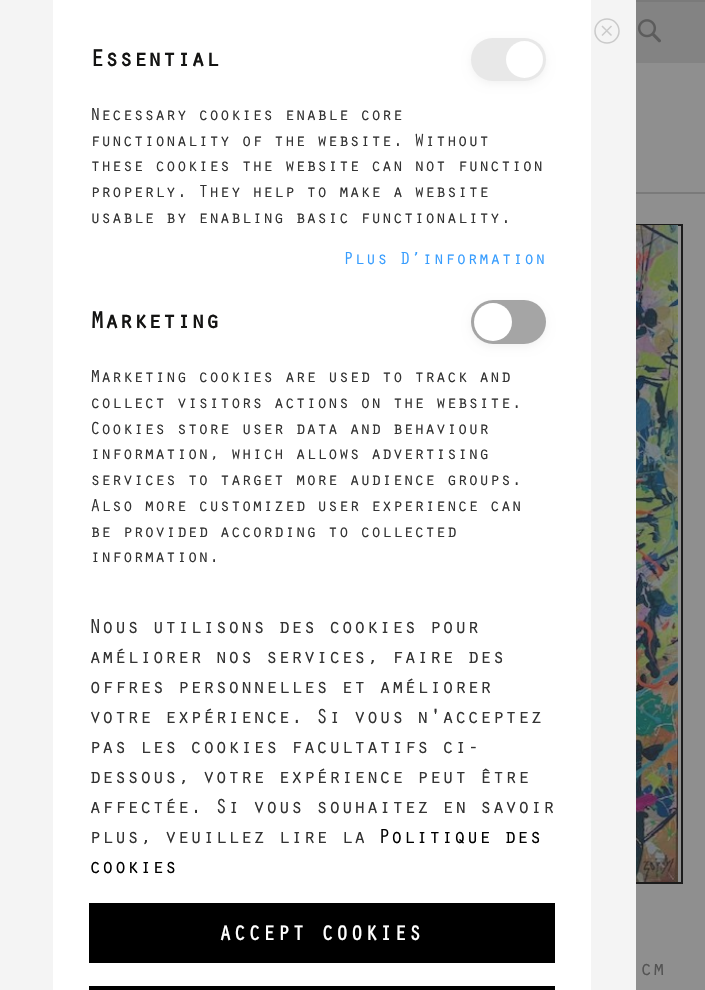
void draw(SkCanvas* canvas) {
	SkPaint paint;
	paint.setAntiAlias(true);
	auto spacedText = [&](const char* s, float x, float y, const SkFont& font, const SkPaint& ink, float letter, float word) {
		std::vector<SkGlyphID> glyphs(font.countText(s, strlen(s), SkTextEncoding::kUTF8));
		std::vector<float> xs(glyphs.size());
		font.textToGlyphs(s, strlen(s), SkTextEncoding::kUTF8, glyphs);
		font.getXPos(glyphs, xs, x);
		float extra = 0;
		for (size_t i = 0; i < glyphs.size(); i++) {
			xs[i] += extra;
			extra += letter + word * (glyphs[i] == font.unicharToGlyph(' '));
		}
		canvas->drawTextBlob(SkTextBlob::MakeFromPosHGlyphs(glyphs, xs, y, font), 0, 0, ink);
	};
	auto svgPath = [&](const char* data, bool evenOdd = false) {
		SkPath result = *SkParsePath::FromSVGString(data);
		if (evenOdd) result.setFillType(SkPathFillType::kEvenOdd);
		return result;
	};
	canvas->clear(0xff8f8f8f);
	paint.setStroke(true);
	paint.setStrokeWidth(2);
	paint.setColor(0xff1c1c1c);
	canvas->drawRect(SkRect::MakeXYWH(24, 225, 658, 658), paint);
	paint.setStroke(false);
	paint.setColor(0xfff4f4f4);
	canvas->drawRect(SkRect::MakeXYWH(0, 0, 636, 990), paint);
	paint.setStroke(true);
	paint.setStrokeWidth(1.5);
	paint.setColor(0xffcacaca);
	canvas->drawCircle(607, 31, 12, paint);
	canvas->drawPath(svgPath("M602 26L611.5 35.5M611.5 26L602 35.5"), paint);
	paint.setStroke(false);
	paint.setColor(0xffffffff);
	canvas->drawRect(SkRect::MakeXYWH(53, 0, 538, 990), paint);
	SkFont f1(fontMgr->matchFamilyStyle("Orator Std", SkFontStyle::Bold()), 24);
	f1.setSubpixel(true);
	paint.setColor(0xff141413);
	canvas->drawString("Essential", 90, 66, f1, paint);
	paint.setColor(0x0d000000);
	paint.setMaskFilter(SkMaskFilter::MakeBlur(kNormal_SkBlurStyle, 4));
	canvas->drawRoundRect(SkRect::MakeXYWH(471, 41, 75, 43), 21.5, 21.5, paint);
	paint.setMaskFilter(nullptr);
	paint.setColor(0xffe8e8e8);
	canvas->drawRoundRect(SkRect::MakeXYWH(471, 38, 75, 43), 21.5, 21.5, paint);
	paint.setColor(0xffffffff);
	canvas->drawCircle(524.5, 59.5, 18.5, paint);
	SkFont f2(fontMgr->matchFamilyStyle("Orator Std", SkFontStyle::Normal()), 18);
	f2.setSubpixel(true);
	paint.setColor(0xff333333);
	canvas->drawString("Necessary cookies enable core", 90, 120, f2, paint);
	canvas->drawString("functionality of the website. Without", 90, 146, f2, paint);
	canvas->drawString("these cookies the website can not function", 90, 171, f2, paint);
	canvas->drawString("properly. They help to make a website", 90, 197, f2, paint);
	canvas->drawString("usable by enabling basic functionality.", 90, 223, f2, paint);
	paint.setColor(0xff389dfe);
	spacedText("Plus D’information", 343, 264, f2, paint, 0.5, 0);
	paint.setColor(0xff141413);
	canvas->drawString("Marketing", 90, 328, f1, paint);
	paint.setColor(0x0d000000);
	paint.setMaskFilter(SkMaskFilter::MakeBlur(kNormal_SkBlurStyle, 4));
	canvas->drawRoundRect(SkRect::MakeXYWH(471, 303, 75, 44), 22, 22, paint);
	paint.setMaskFilter(nullptr);
	paint.setColor(0xffa5a5a5);
	canvas->drawRoundRect(SkRect::MakeXYWH(471, 300, 75, 44), 22, 22, paint);
	paint.setColor(0xffffffff);
	canvas->drawCircle(493, 322, 19, paint);
	paint.setColor(0xff333333);
	canvas->drawString("Marketing cookies are used to track and", 90, 382, f2, paint);
	canvas->drawString("collect visitors actions on the website.", 90, 408, f2, paint);
	canvas->drawString("Cookies store user data and behaviour", 90, 434, f2, paint);
	canvas->drawString("information, which allows advertising", 90, 459, f2, paint);
	canvas->drawString("services to target more audience groups.", 90, 485, f2, paint);
	canvas->drawString("Also more customized user experience can", 90, 511, f2, paint);
	canvas->drawString("be provided according to collected", 90, 537, f2, paint);
	canvas->drawString("information.", 90, 562, f2, paint);
	SkFont f3(fontMgr->matchFamilyStyle("Orator Std", SkFontStyle::Normal()), 21);
	f3.setSubpixel(true);
	canvas->drawString("Nous utilisons des cookies pour", 89, 633, f3, paint);
	canvas->drawString("améliorer nos services, faire des", 89, 663, f3, paint);
	canvas->drawString("offres personnelles et améliorer", 89, 693, f3, paint);
	canvas->drawString("votre expérience. Si vous n'acceptez", 89, 723, f3, paint);
	canvas->drawString("pas les cookies facultatifs ci-", 89, 753, f3, paint);
	canvas->drawString("dessous, votre expérience peut être", 89, 783, f3, paint);
	canvas->drawString("affectée. Si vous souhaitez en savoir", 89, 813, f3, paint);
	canvas->drawString("plus, veuillez lire la", 89, 843, f3, paint);
	paint.setColor(0xff000000);
	canvas->drawString("Politique des", 378, 843, f3, paint);
	canvas->drawString("cookies", 89, 873, f3, paint);
	canvas->drawRect(SkRect::MakeXYWH(89, 903, 466, 60), paint);
	SkFont f4(fontMgr->matchFamilyStyle("Orator Std", SkFontStyle::Bold()), 21);
	f4.setSubpixel(true);
	paint.setColor(0xffffffff);
	spacedText("ACCEPT COOKIES", 219, 940, f4, paint, 2, 0);
	paint.setColor(0xff000000);
	canvas->drawRect(SkRect::MakeXYWH(89, 986, 466, 4), paint);
	paint.setColor(0xff7a7a7a);
	canvas->drawRect(SkRect::MakeXYWH(636, 192, 69, 2), paint);
	paint.setColor(0xff838383);
	canvas->drawRect(SkRect::MakeXYWH(636, 2, 69, 61), paint);
	paint.setColor(0xff7a7a7a);
	canvas->drawRect(SkRect::MakeXYWH(636, 0, 69, 2), paint);
	canvas->drawImageRect(SkImages::DeferredFromEncodedData(SkData::MakeFromFileName("img1.png")), SkRect::MakeXYWH(637, 19, 24, 24), SkSamplingOptions());
	canvas->drawImageRect(SkImages::DeferredFromEncodedData(SkData::MakeFromFileName("img2.png")), SkRect::MakeXYWH(636, 225, 42, 657), SkSamplingOptions());
	paint.setColor(0xff545454);
	canvas->drawString("cm", 640, 975, f3, paint);
}
